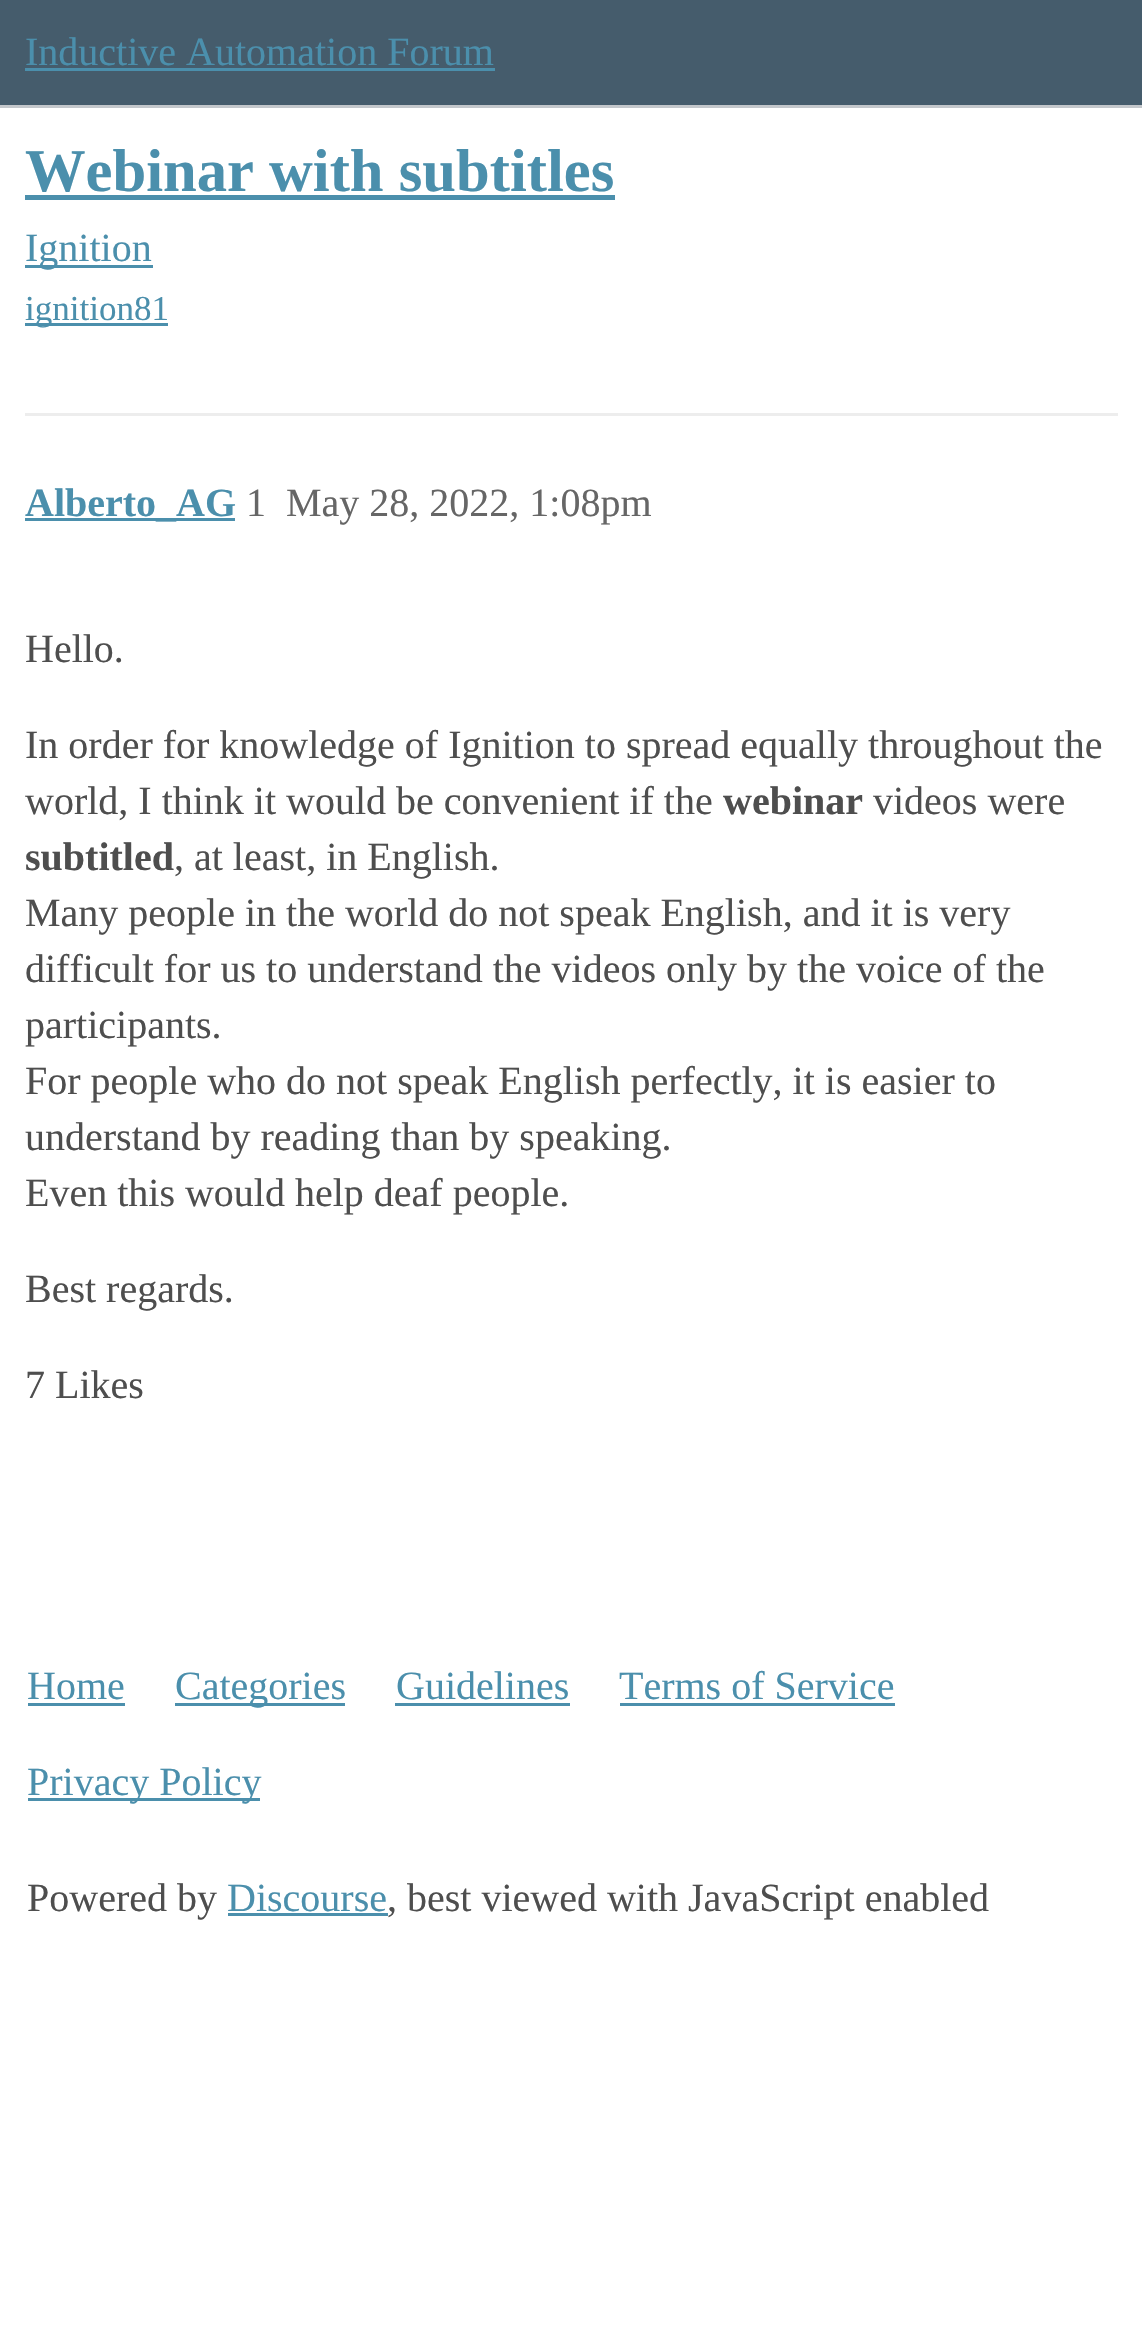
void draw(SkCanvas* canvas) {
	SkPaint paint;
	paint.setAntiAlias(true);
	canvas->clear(0xffffffff);
	paint.setColor(0xff455c6c);
	canvas->drawRect(SkRect::MakeXYWH(0, 0, 1142, 105), paint);
	paint.setColor(0xffc3c7cb);
	canvas->drawRect(SkRect::MakeXYWH(0, 105, 1142, 3), paint);
	SkFont f1(fontMgr->matchFamilyStyle("Liberation Serif", SkFontStyle::Normal()), 40);
	f1.setSubpixel(true);
	paint.setColor(0xff4b8fac);
	canvas->drawString("Inductive Automation Forum", 25, 65, f1, paint);
	canvas->drawRect(SkRect::MakeXYWH(25, 68, 470, 3), paint);
	SkFont f2(fontMgr->matchFamilyStyle("Liberation Serif", SkFontStyle::Bold()), 60.6);
	f2.setSubpixel(true);
	canvas->drawString("Webinar with subtitles", 25, 191, f2, paint);
	canvas->drawRect(SkRect::MakeXYWH(25, 195, 590, 5), paint);
	canvas->drawRect(SkRect::MakeXYWH(25, 265, 128, 3), paint);
	canvas->drawString("Ignition", 25, 261, f1, paint);
	canvas->drawRect(SkRect::MakeXYWH(25, 323, 143, 3), paint);
	SkFont f3(fontMgr->matchFamilyStyle("Liberation Serif", SkFontStyle::Normal()), 35);
	f3.setSubpixel(true);
	canvas->drawString("ignition81", 25, 320, f3, paint);
	paint.setColor(0xffededed);
	canvas->drawRect(SkRect::MakeXYWH(25, 413, 1093, 3), paint);
	paint.setColor(0xff4b8fac);
	canvas->drawRect(SkRect::MakeXYWH(25, 518, 210, 3), paint);
	SkFont f4(fontMgr->matchFamilyStyle("Liberation Serif", SkFontStyle::Bold()), 40);
	f4.setSubpixel(true);
	canvas->drawString("Alberto_AG", 25, 516, f4, paint);
	paint.setColor(0xff666666);
	canvas->drawString("1", 246, 516, f1, paint);
	canvas->drawString("May 28, 2022, 1:08pm", 286, 516, f1, paint);
	paint.setColor(0xff4e4e4e);
	canvas->drawString("Hello.", 25, 662, f1, paint);
	canvas->drawString("In order for knowledge of Ignition to spread equally throughout the", 25, 758, f1, paint);
	canvas->drawString("world, I think it would be convenient if the", 25, 814, f1, paint);
	canvas->drawString("webinar", 723, 814, f4, paint);
	canvas->drawString("videos were", 873, 814, f1, paint);
	canvas->drawString("subtitled", 25, 870, f4, paint);
	canvas->drawString(", at least, in English.", 174, 870, f1, paint);
	canvas->drawString("Many people in the world do not speak English, and it is very", 25, 926, f1, paint);
	canvas->drawString("difficult for us to understand the videos only by the voice of the", 25, 982, f1, paint);
	canvas->drawString("participants.", 25, 1038, f1, paint);
	canvas->drawString("For people who do not speak English perfectly, it is easier to", 25, 1094, f1, paint);
	canvas->drawString("understand by reading than by speaking.", 25, 1150, f1, paint);
	canvas->drawString("Even this would help deaf people.", 25, 1206, f1, paint);
	canvas->drawString("Best regards.", 25, 1302, f1, paint);
	canvas->drawString("7 Likes", 25, 1398, f1, paint);
	paint.setColor(0xff4b8fac);
	canvas->drawString("Home", 27, 1699, f1, paint);
	canvas->drawRect(SkRect::MakeXYWH(28, 1703, 97, 3), paint);
	canvas->drawRect(SkRect::MakeXYWH(175, 1703, 170, 3), paint);
	canvas->drawString("Categories", 175, 1699, f1, paint);
	canvas->drawString("Guidelines", 396, 1699, f1, paint);
	canvas->drawRect(SkRect::MakeXYWH(395, 1703, 175, 3), paint);
	canvas->drawString("Terms of Service", 619, 1699, f1, paint);
	canvas->drawRect(SkRect::MakeXYWH(620, 1703, 275, 3), paint);
	canvas->drawRect(SkRect::MakeXYWH(28, 1798, 232, 3), paint);
	canvas->drawString("Privacy Policy", 27, 1795, f1, paint);
	paint.setColor(0xff4e4e4e);
	canvas->drawString("Powered by", 27, 1911, f1, paint);
	paint.setColor(0xff4b8fac);
	canvas->drawString("Discourse", 227, 1911, f1, paint);
	canvas->drawRect(SkRect::MakeXYWH(228, 1913, 160, 3), paint);
	paint.setColor(0xff4e4e4e);
	canvas->drawString(", best viewed with JavaScript enabled", 387, 1911, f1, paint);
}
